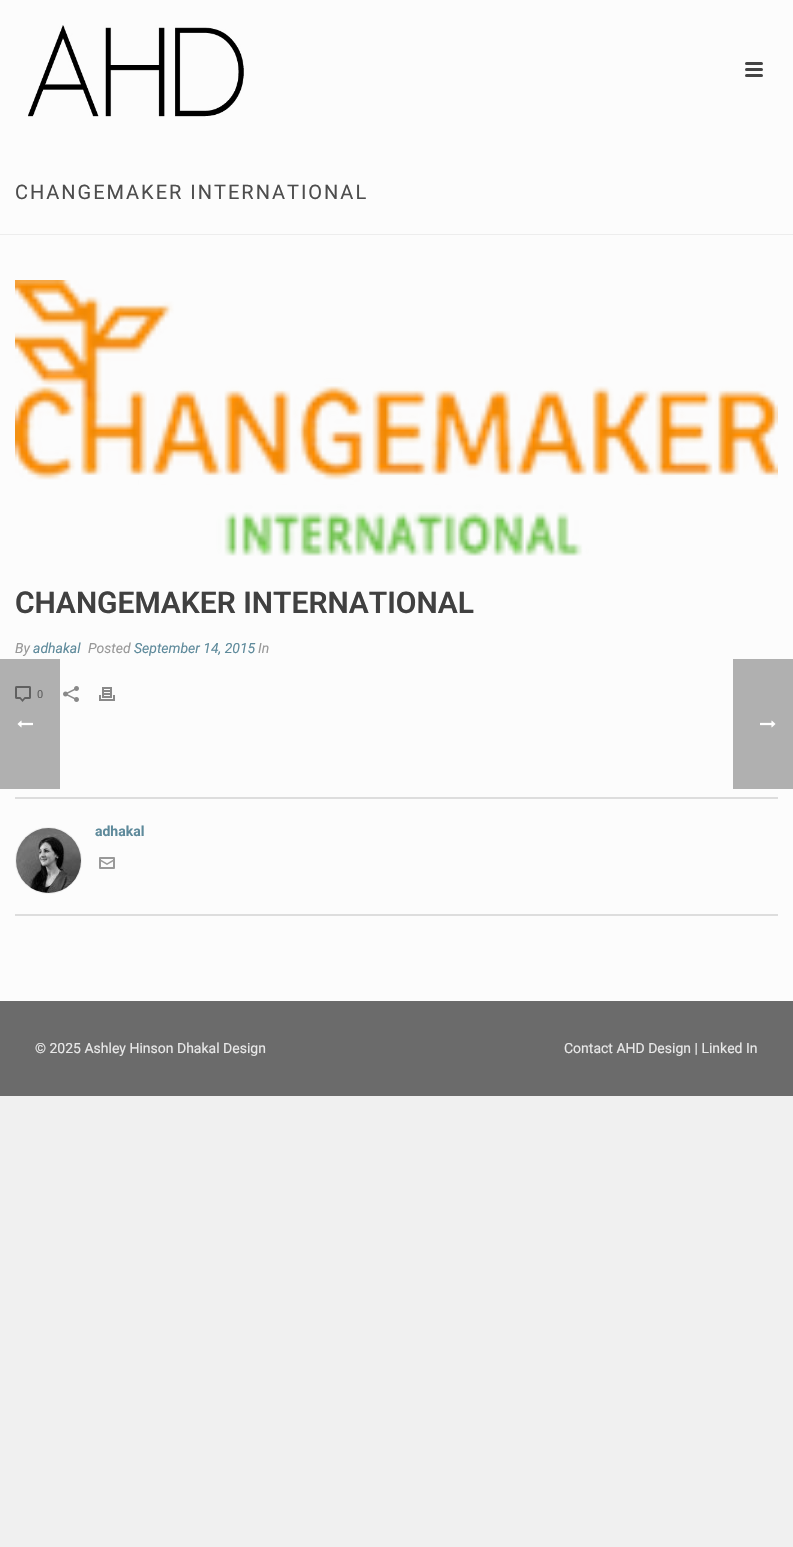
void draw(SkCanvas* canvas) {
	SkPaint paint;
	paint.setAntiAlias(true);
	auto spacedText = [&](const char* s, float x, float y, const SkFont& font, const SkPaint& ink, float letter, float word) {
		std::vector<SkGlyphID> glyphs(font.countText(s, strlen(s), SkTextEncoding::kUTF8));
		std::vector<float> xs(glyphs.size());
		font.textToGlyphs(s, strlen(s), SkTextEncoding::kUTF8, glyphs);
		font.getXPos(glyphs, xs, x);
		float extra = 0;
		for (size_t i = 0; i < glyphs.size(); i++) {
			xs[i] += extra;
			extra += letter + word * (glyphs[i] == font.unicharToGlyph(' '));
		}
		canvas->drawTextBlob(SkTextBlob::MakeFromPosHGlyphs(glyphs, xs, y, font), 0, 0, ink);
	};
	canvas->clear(0xfff0f0f0);
	paint.setColor(0xfffcfcfc);
	canvas->drawRect(SkRect::MakeXYWH(0, 0, 793, 234), paint);
	paint.setColor(0xffededed);
	canvas->drawRect(SkRect::MakeXYWH(0, 234, 793, 1), paint);
	canvas->drawImageRect(SkImages::DeferredFromEncodedData(SkData::MakeFromFileName("img1.png")), SkRect::MakeXYWH(28, 25, 216, 92), SkSamplingOptions());
	paint.setColor(0xff444444);
	canvas->drawRoundRect(SkRect::MakeXYWH(745, 62, 18, 3), 1.5, 1.5, paint);
	canvas->drawRoundRect(SkRect::MakeXYWH(745, 68, 18, 3), 1.5, 1.5, paint);
	canvas->drawRoundRect(SkRect::MakeXYWH(745, 74, 18, 3), 1.5, 1.5, paint);
	SkFont f1(fontMgr->matchFamilyStyle("Roboto", SkFontStyle::Normal()), 20);
	f1.setSubpixel(true);
	paint.setColor(0xff4d4d4d);
	spacedText("CHANGEMAKER INTERNATIONAL", 15, 199, f1, paint, 2, 0);
	paint.setColor(0xfffcfcfc);
	canvas->drawRect(SkRect::MakeXYWH(0, 235, 793, 766), paint);
	paint.setColor(0xffb0b0b0);
	canvas->drawRect(SkRect::MakeXYWH(0, 659, 60, 130), paint);
	canvas->drawImageRect(SkImages::DeferredFromEncodedData(SkData::MakeFromFileName("img2.png")), SkRect::MakeXYWH(15, 280, 763, 276), SkSamplingOptions());
	SkFont f2(fontMgr->matchFamilyStyle("Roboto", SkFontStyle(600, SkFontStyle::kNormal_Width, SkFontStyle::kUpright_Slant)), 30);
	f2.setSubpixel(true);
	paint.setColor(0xff404040);
	canvas->drawString("CHANGEMAKER INTERNATIONAL", 15, 613, f2, paint);
	SkFont f3(fontMgr->matchFamilyStyle("Roboto", SkFontStyle::Italic()), 14);
	f3.setSubpixel(true);
	paint.setColor(0xff999999);
	canvas->drawString("By", 15, 653, f3, paint);
	paint.setColor(0xff5e8a9b);
	canvas->drawString("adhakal", 33, 653, f3, paint);
	paint.setColor(0xff999999);
	canvas->drawString("Posted", 88, 653, f3, paint);
	paint.setColor(0xff5e8a9b);
	canvas->drawString("September 14, 2015", 134, 653, f3, paint);
	paint.setColor(0xff999999);
	canvas->drawString("In", 258, 653, f3, paint);
	canvas->drawImageRect(SkImages::DeferredFromEncodedData(SkData::MakeFromFileName("img3.png")), SkRect::MakeXYWH(15, 686, 16, 16), SkSamplingOptions());
	SkFont f4(fontMgr->matchFamilyStyle("Roboto", SkFontStyle::Normal()), 11);
	f4.setSubpixel(true);
	paint.setColor(0xff606060);
	canvas->drawString("0", 37, 698, f4, paint);
	canvas->drawImageRect(SkImages::DeferredFromEncodedData(SkData::MakeFromFileName("img4.png")), SkRect::MakeXYWH(63, 686, 16, 16), SkSamplingOptions());
	canvas->drawImageRect(SkImages::DeferredFromEncodedData(SkData::MakeFromFileName("img5.png")), SkRect::MakeXYWH(99, 687, 16, 14), SkSamplingOptions());
	paint.setColor(0xffdddddd);
	canvas->drawRect(SkRect::MakeXYWH(15, 797, 763, 2), paint);
	canvas->drawRect(SkRect::MakeXYWH(15, 914, 763, 2), paint);
	paint.setStroke(true);
	paint.setStrokeWidth(1);
	paint.setColor(0xffeeeeee);
	canvas->drawCircle(48.5, 860.5, 33, paint);
	canvas->drawImageRect(SkImages::DeferredFromEncodedData(SkData::MakeFromFileName("img6.png")), SkRect::MakeXYWH(16, 828, 65, 65), SkSamplingOptions());
	SkFont f5(fontMgr->matchFamilyStyle("Roboto", SkFontStyle::Bold()), 14);
	f5.setSubpixel(true);
	paint.setStroke(false);
	paint.setColor(0xff5e8a9b);
	canvas->drawString("adhakal", 95, 836, f5, paint);
	canvas->drawImageRect(SkImages::DeferredFromEncodedData(SkData::MakeFromFileName("img7.png")), SkRect::MakeXYWH(99, 857, 16, 12), SkSamplingOptions());
	paint.setColor(0xff6b6b6b);
	canvas->drawRect(SkRect::MakeXYWH(0, 1001, 793, 95), paint);
	SkFont f6(fontMgr->matchFamilyStyle("Roboto", SkFontStyle::Normal()), 14);
	f6.setSubpixel(true);
	paint.setColor(0xffe8e8e8);
	canvas->drawString("© 2025 Ashley Hinson Dhakal Design", 35, 1053, f6, paint);
	canvas->drawString("Contact AHD Design | Linked In", 564, 1053, f6, paint);
	paint.setColor(0xffb0b0b0);
	canvas->drawRect(SkRect::MakeXYWH(733, 659, 60, 130), paint);
	canvas->drawImageRect(SkImages::DeferredFromEncodedData(SkData::MakeFromFileName("img8.png")), SkRect::MakeXYWH(760, 720, 16, 8), SkSamplingOptions());
	canvas->drawImageRect(SkImages::DeferredFromEncodedData(SkData::MakeFromFileName("img9.png")), SkRect::MakeXYWH(17, 720, 16, 8), SkSamplingOptions());
}
